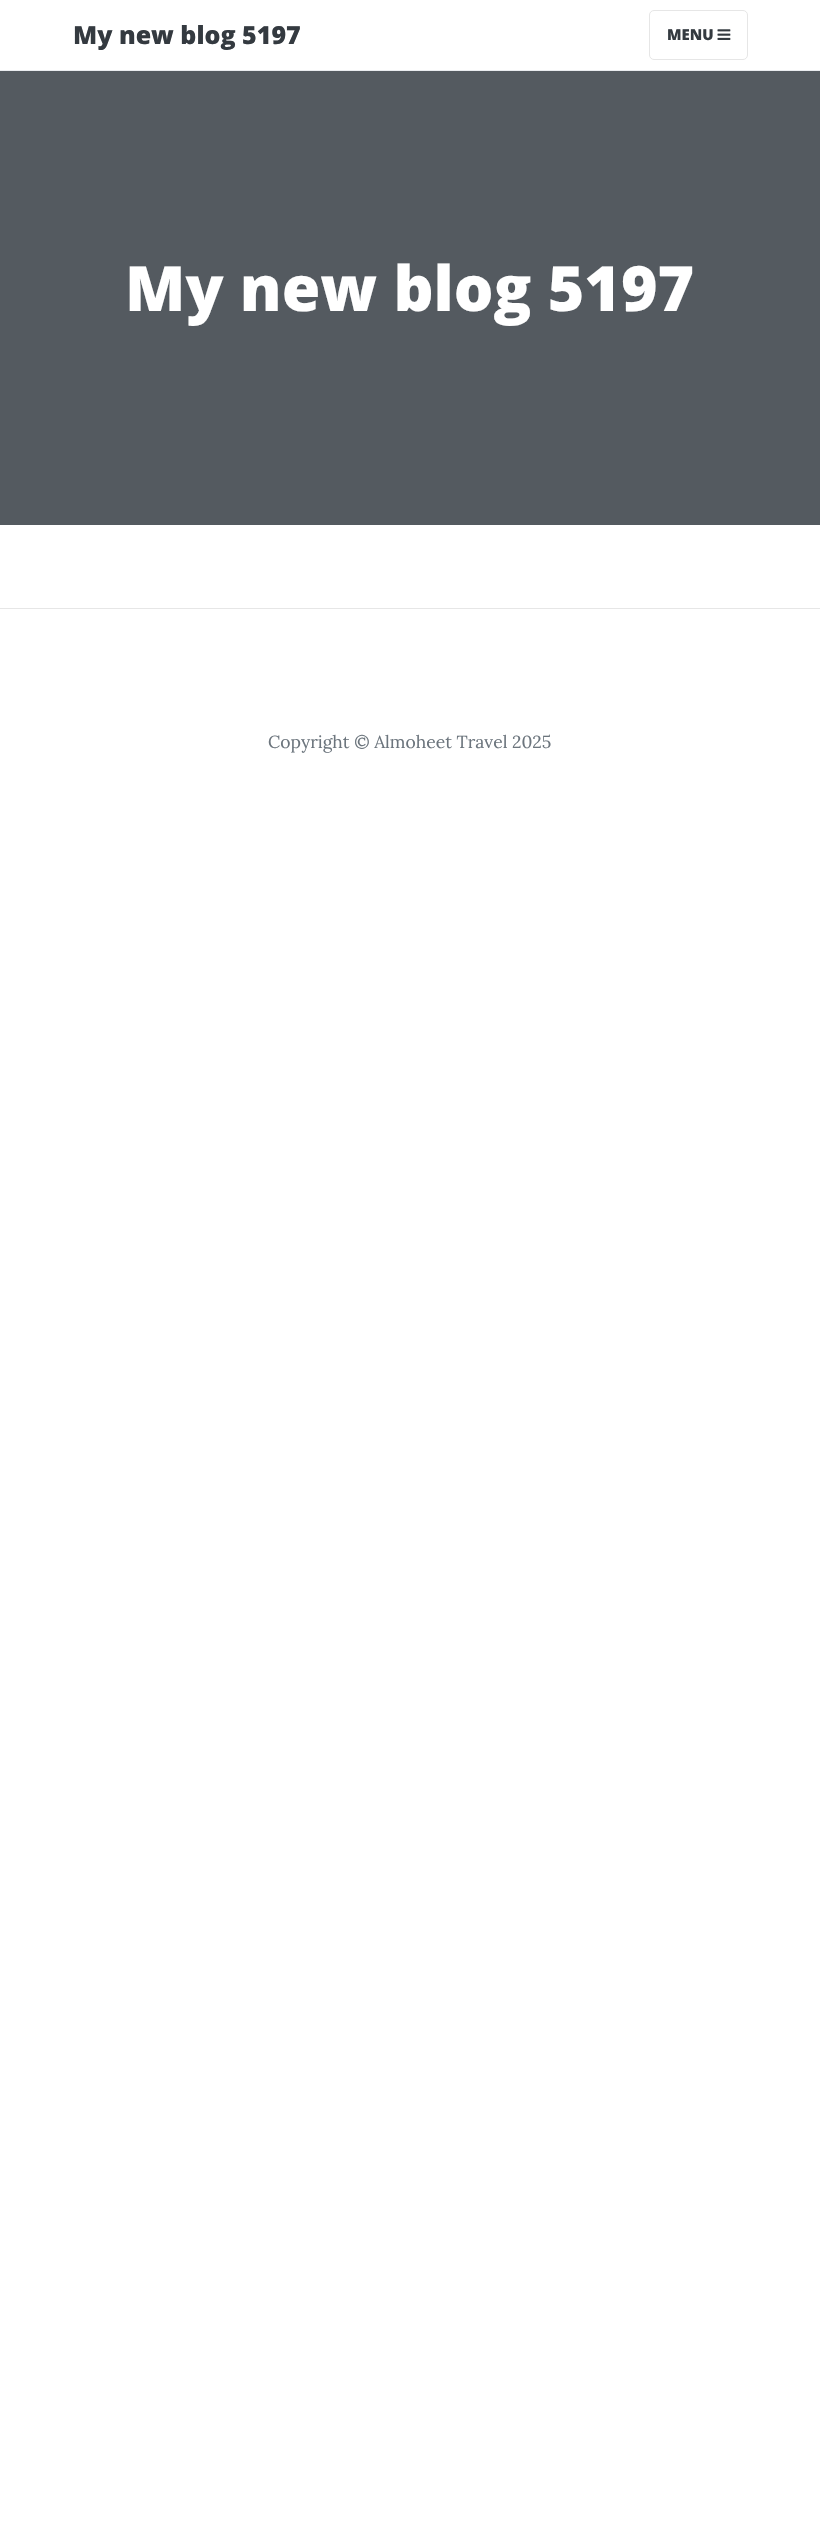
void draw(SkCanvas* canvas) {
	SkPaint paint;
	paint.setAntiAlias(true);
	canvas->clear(0xffffffff);
	paint.setColor(0xffe9ecef);
	canvas->drawRect(SkRect::MakeXYWH(0, 70, 820, 1), paint);
	SkFont f1(fontMgr->matchFamilyStyle("Open Sans", SkFontStyle(800, SkFontStyle::kNormal_Width, SkFontStyle::kUpright_Slant)), 25);
	f1.setSubpixel(true);
	paint.setColor(0xff343a40);
	canvas->drawString("My new blog 5197", 73, 44, f1, paint);
	paint.setStroke(true);
	paint.setStrokeWidth(1);
	paint.setColor(0xffe6e6e6);
	canvas->drawRoundRect(SkRect::MakeXYWH(649.5, 10.5, 98, 49), 4.5, 4.5, paint);
	SkFont f2(fontMgr->matchFamilyStyle("Open Sans", SkFontStyle(800, SkFontStyle::kNormal_Width, SkFontStyle::kUpright_Slant)), 15);
	f2.setSubpixel(true);
	paint.setStroke(false);
	paint.setColor(0xff343a40);
	canvas->drawString("MENU", 667, 40, f2, paint);
	canvas->drawImageRect(SkImages::DeferredFromEncodedData(SkData::MakeFromFileName("img1.png")), SkRect::MakeXYWH(717, 29, 14, 11), SkSamplingOptions());
	paint.setColor(0xff545a60);
	canvas->drawRect(SkRect::MakeXYWH(0, 71, 820, 454), paint);
	SkFont f3(fontMgr->matchFamilyStyle("Open Sans", SkFontStyle(800, SkFontStyle::kNormal_Width, SkFontStyle::kUpright_Slant)), 62.5);
	f3.setSubpixel(true);
	paint.setColor(0xffffffff);
	canvas->drawString("My new blog 5197", 125, 311, f3, paint);
	paint.setColor(0xffe6e6e6);
	canvas->drawRect(SkRect::MakeXYWH(0, 608, 820, 1), paint);
	SkFont f4(fontMgr->matchFamilyStyle("Lora", SkFontStyle::Normal()), 17.5);
	f4.setSubpixel(true);
	paint.setColor(0xff6c757d);
	canvas->drawString("Copyright © Almoheet Travel 2025", 268, 748, f4, paint);
}
